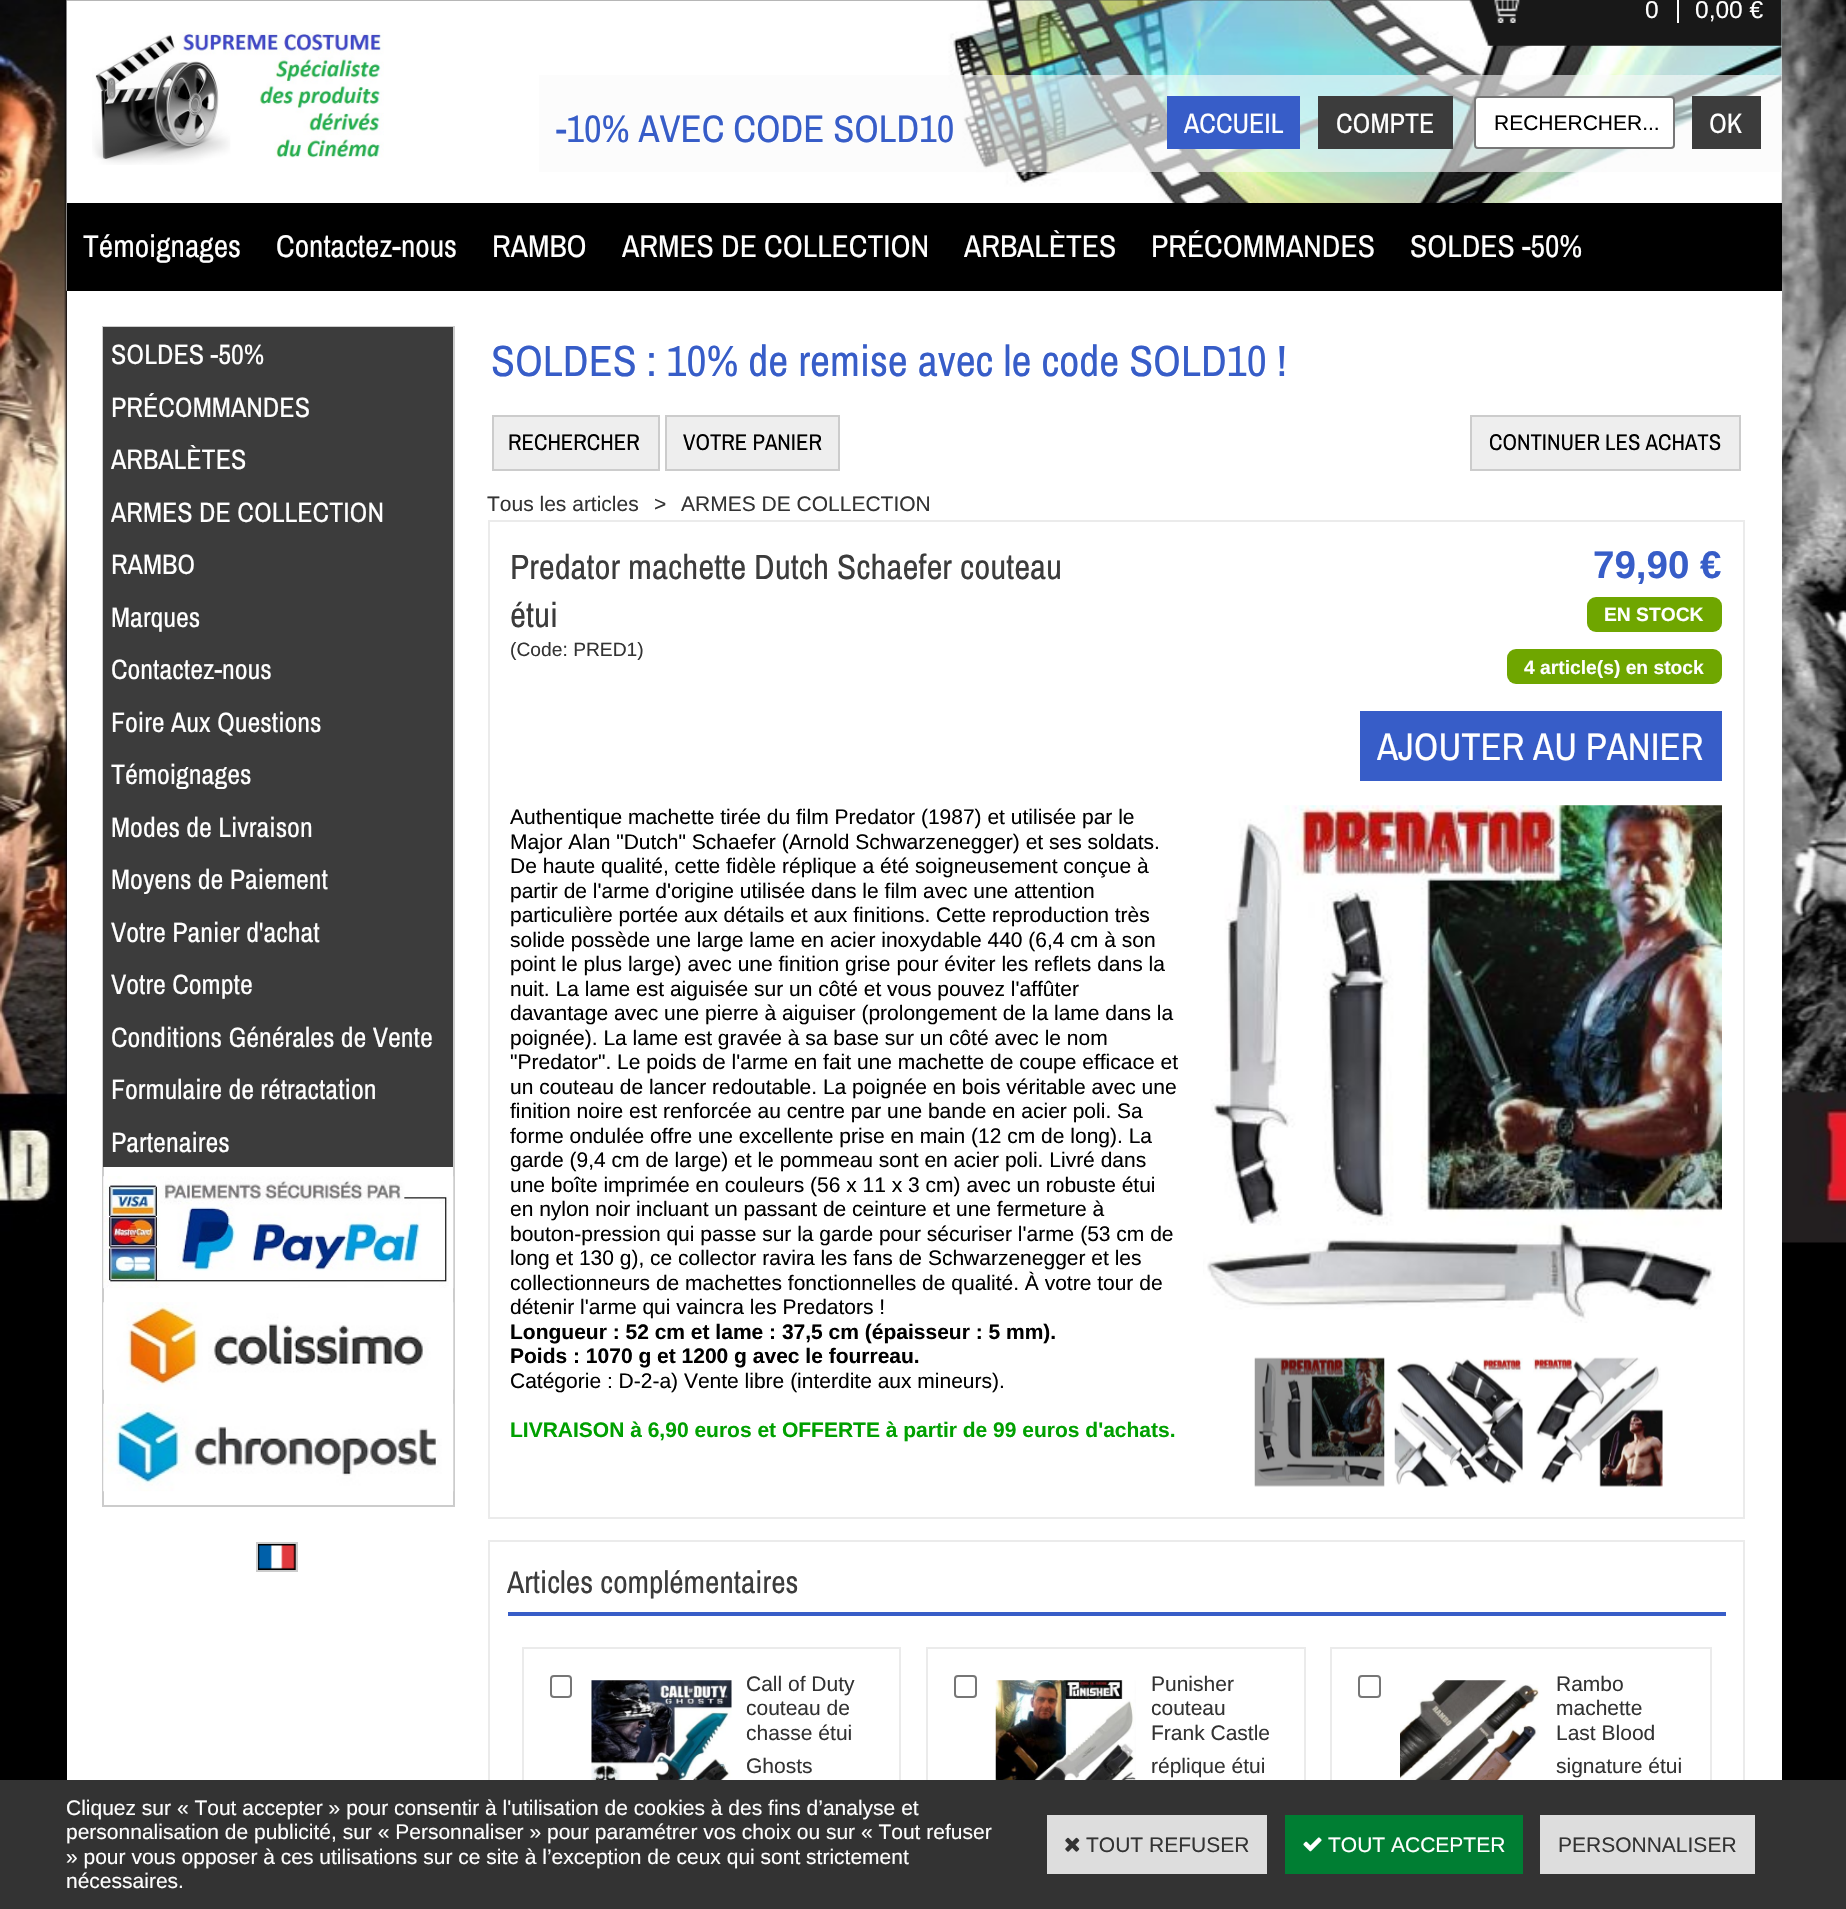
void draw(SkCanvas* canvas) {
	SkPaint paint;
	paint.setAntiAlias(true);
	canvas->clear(0xff000000);
	canvas->drawImageRect(SkImages::DeferredFromEncodedData(SkData::MakeFromFileName("img1.png")), SkRect::MakeXYWH(0, 0, 1846, 1243), SkSamplingOptions());
	paint.setColor(0xffd4d4d4);
	canvas->drawRect(SkRect::MakeXYWH(1781, 0, 1, 203), paint);
	canvas->drawImageRect(SkImages::DeferredFromEncodedData(SkData::MakeFromFileName("img2.png")), SkRect::MakeXYWH(66, 0, 1716, 291), SkSamplingOptions());
	canvas->drawImageRect(SkImages::DeferredFromEncodedData(SkData::MakeFromFileName("img3.png")), SkRect::MakeXYWH(66, 0, 1716, 46), SkSamplingOptions());
	canvas->drawImageRect(SkImages::DeferredFromEncodedData(SkData::MakeFromFileName("img4.png")), SkRect::MakeXYWH(1494, 0, 26, 23), SkSamplingOptions());
	paint.setColor(0xffffffff);
	canvas->drawRect(SkRect::MakeXYWH(1677, 0, 2, 23), paint);
	SkFont f1(fontMgr->matchFamilyStyle("Liberation Sans", SkFontStyle::Normal()), 24.5);
	f1.setSubpixel(true);
	canvas->drawString("0", 1645, 18, f1, paint);
	canvas->drawString("0,00 €", 1695, 18, f1, paint);
	canvas->drawImageRect(SkImages::DeferredFromEncodedData(SkData::MakeFromFileName("img5.png")), SkRect::MakeXYWH(92, 32, 292, 133), SkSamplingOptions());
	paint.setColor(0x99fafafa);
	canvas->drawRect(SkRect::MakeXYWH(539, 75, 1243, 97), paint);
	SkFont f2(fontMgr->matchFamilyStyle("Archivo Narrow", SkFontStyle::Normal()), 38.5);
	f2.setSubpixel(true);
	paint.setColor(0xff375dc8);
	canvas->drawString("-10% AVEC CODE SOLD10", 556, 142, f2, paint);
	canvas->drawRect(SkRect::MakeXYWH(1167, 96, 133, 53), paint);
	SkFont f3(fontMgr->matchFamilyStyle("Archivo Narrow", SkFontStyle::Normal()), 28);
	f3.setSubpixel(true);
	paint.setColor(0xffffffff);
	canvas->drawString("ACCUEIL", 1184, 133, f3, paint);
	paint.setColor(0xff3c3c3c);
	canvas->drawRect(SkRect::MakeXYWH(1318, 96, 135, 53), paint);
	paint.setColor(0xffffffff);
	canvas->drawString("COMPTE", 1336, 133, f3, paint);
	canvas->drawRoundRect(SkRect::MakeXYWH(1475, 97, 199, 51), 3, 3, paint);
	paint.setStroke(true);
	paint.setStrokeWidth(2);
	paint.setColor(0xff767676);
	canvas->drawRoundRect(SkRect::MakeXYWH(1475, 97, 199, 51), 3, 3, paint);
	SkFont f4(fontMgr->matchFamilyStyle("Liberation Sans", SkFontStyle::Normal()), 21);
	f4.setSubpixel(true);
	paint.setStroke(false);
	paint.setColor(0xff000000);
	canvas->drawString("RECHERCHER...", 1494, 130, f4, paint);
	paint.setColor(0xff3c3c3c);
	canvas->drawRect(SkRect::MakeXYWH(1692, 96, 69, 53), paint);
	paint.setColor(0xffffffff);
	canvas->drawString("OK", 1709, 133, f3, paint);
	paint.setColor(0xff000000);
	canvas->drawRect(SkRect::MakeXYWH(67, 203, 1715, 88), paint);
	SkFont f5(fontMgr->matchFamilyStyle("Archivo Narrow", SkFontStyle::Normal()), 31.5);
	f5.setSubpixel(true);
	paint.setColor(0xffffffff);
	canvas->drawString("Témoignages", 83, 257, f5, paint);
	canvas->drawString("Contactez-nous", 276, 257, f5, paint);
	canvas->drawString("RAMBO", 492, 257, f5, paint);
	canvas->drawString("ARMES DE COLLECTION", 622, 257, f5, paint);
	canvas->drawString("ARBALÈTES", 964, 257, f5, paint);
	canvas->drawString("PRÉCOMMANDES", 1151, 257, f5, paint);
	canvas->drawString("SOLDES -50%", 1410, 257, f5, paint);
	canvas->drawRect(SkRect::MakeXYWH(67, 291, 1715, 1489), paint);
	paint.setStroke(true);
	paint.setColor(0xffcccccc);
	canvas->drawRect(SkRect::MakeXYWH(103, 327, 351, 1179), paint);
	paint.setStroke(false);
	paint.setColor(0xff3c3c3c);
	canvas->drawRect(SkRect::MakeXYWH(103, 327, 350, 840), paint);
	paint.setColor(0xffffffff);
	canvas->drawString("SOLDES -50%", 111, 364, f3, paint);
	canvas->drawString("PRÉCOMMANDES", 111, 417, f3, paint);
	canvas->drawString("ARBALÈTES", 111, 469, f3, paint);
	canvas->drawString("ARMES DE COLLECTION", 111, 522, f3, paint);
	canvas->drawString("RAMBO", 111, 574, f3, paint);
	canvas->drawString("Marques", 111, 627, f3, paint);
	canvas->drawString("Contactez-nous", 111, 679, f3, paint);
	canvas->drawString("Foire Aux Questions", 111, 732, f3, paint);
	canvas->drawString("Témoignages", 111, 784, f3, paint);
	canvas->drawString("Modes de Livraison", 111, 837, f3, paint);
	canvas->drawString("Moyens de Paiement", 111, 889, f3, paint);
	canvas->drawString("Votre Panier d'achat", 111, 942, f3, paint);
	canvas->drawString("Votre Compte", 111, 994, f3, paint);
	canvas->drawString("Conditions Générales de Vente", 111, 1047, f3, paint);
	canvas->drawString("Formulaire de rétractation", 111, 1099, f3, paint);
	canvas->drawString("Partenaires", 111, 1152, f3, paint);
	canvas->drawImageRect(SkImages::DeferredFromEncodedData(SkData::MakeFromFileName("img6.png")), SkRect::MakeXYWH(103, 1176, 351, 113), SkSamplingOptions());
	canvas->drawImageRect(SkImages::DeferredFromEncodedData(SkData::MakeFromFileName("img7.png")), SkRect::MakeXYWH(103, 1302, 351, 88), SkSamplingOptions());
	canvas->drawImageRect(SkImages::DeferredFromEncodedData(SkData::MakeFromFileName("img8.png")), SkRect::MakeXYWH(103, 1403, 351, 89), SkSamplingOptions());
	canvas->drawImageRect(SkImages::DeferredFromEncodedData(SkData::MakeFromFileName("img9.png")), SkRect::MakeXYWH(258, 1544, 38, 26), SkSamplingOptions());
	paint.setStroke(true);
	paint.setColor(0xffcccccc);
	canvas->drawRect(SkRect::MakeXYWH(257, 1543, 40, 28), paint);
	SkFont f6(fontMgr->matchFamilyStyle("Archivo Narrow", SkFontStyle::Normal()), 43.75);
	f6.setSubpixel(true);
	paint.setStroke(false);
	paint.setColor(0xff375dc8);
	canvas->drawString("SOLDES : 10% de remise avec le code SOLD10 !", 491, 376, f6, paint);
	paint.setColor(0xffeeeeee);
	canvas->drawRect(SkRect::MakeXYWH(493, 416, 166, 54), paint);
	paint.setStroke(true);
	paint.setColor(0xffcccccc);
	canvas->drawRect(SkRect::MakeXYWH(493, 416, 166, 54), paint);
	SkFont f7(fontMgr->matchFamilyStyle("Archivo Narrow", SkFontStyle::Normal()), 22.75);
	f7.setSubpixel(true);
	paint.setStroke(false);
	paint.setColor(0xff000000);
	canvas->drawString("RECHERCHER", 508, 450, f7, paint);
	paint.setColor(0xffeeeeee);
	canvas->drawRect(SkRect::MakeXYWH(666, 416, 173, 54), paint);
	paint.setStroke(true);
	paint.setColor(0xffcccccc);
	canvas->drawRect(SkRect::MakeXYWH(666, 416, 173, 54), paint);
	paint.setStroke(false);
	paint.setColor(0xff000000);
	canvas->drawString("VOTRE PANIER", 683, 450, f7, paint);
	paint.setColor(0xffeeeeee);
	canvas->drawRect(SkRect::MakeXYWH(1471, 416, 269, 54), paint);
	paint.setStroke(true);
	paint.setColor(0xffcccccc);
	canvas->drawRect(SkRect::MakeXYWH(1471, 416, 269, 54), paint);
	paint.setStroke(false);
	paint.setColor(0xff000000);
	canvas->drawString("CONTINUER LES ACHATS", 1489, 450, f7, paint);
	paint.setColor(0xff333333);
	canvas->drawString("Tous les articles", 487, 511, f4, paint);
	canvas->drawString(">", 654, 511, f4, paint);
	canvas->drawString("ARMES DE COLLECTION", 681, 511, f4, paint);
	paint.setStroke(true);
	paint.setColor(0xffebebeb);
	canvas->drawRect(SkRect::MakeXYWH(489, 521, 1255, 997), paint);
	SkFont f8(fontMgr->matchFamilyStyle("Archivo Narrow", SkFontStyle::Normal()), 35);
	f8.setSubpixel(true);
	paint.setStroke(false);
	paint.setColor(0xff3c3c3c);
	canvas->drawString("Predator machette Dutch Schaefer couteau", 510, 579, f8, paint);
	canvas->drawString("étui", 510, 627, f8, paint);
	SkFont f9(fontMgr->matchFamilyStyle("Liberation Sans", SkFontStyle::Normal()), 19.25);
	f9.setSubpixel(true);
	paint.setColor(0xff333333);
	canvas->drawString("(Code: PRED1)", 510, 656, f9, paint);
	SkFont f10(fontMgr->matchFamilyStyle("Liberation Sans", SkFontStyle::Bold()), 38.5);
	f10.setSubpixel(true);
	paint.setColor(0xff375dc8);
	canvas->drawString("79,90 €", 1593, 578, f10, paint);
	paint.setColor(0xff6fa600);
	canvas->drawRoundRect(SkRect::MakeXYWH(1587, 597, 135, 35), 9, 9, paint);
	SkFont f11(fontMgr->matchFamilyStyle("Liberation Sans", SkFontStyle::Bold()), 19.25);
	f11.setSubpixel(true);
	paint.setColor(0xffffffff);
	canvas->drawString("EN STOCK", 1604, 621, f11, paint);
	paint.setColor(0xff6fa600);
	canvas->drawRoundRect(SkRect::MakeXYWH(1507, 649, 215, 35), 9, 9, paint);
	paint.setColor(0xffffffff);
	canvas->drawString("4 article(s) en stock", 1524, 674, f11, paint);
	paint.setColor(0xff375dc8);
	canvas->drawRect(SkRect::MakeXYWH(1360, 711, 362, 70), paint);
	paint.setColor(0xffffffff);
	canvas->drawString("AJOUTER AU PANIER", 1377, 760, f2, paint);
	paint.setColor(0xff000000);
	canvas->drawString("Authentique machette tirée du film Predator (1987) et utilisée par le", 510, 824, f4, paint);
	canvas->drawString("Major Alan \"Dutch\" Schaefer (Arnold Schwarzenegger) et ses soldats.", 510, 849, f4, paint);
	canvas->drawString("De haute qualité, cette fidèle réplique a été soigneusement conçue à", 510, 873, f4, paint);
	canvas->drawString("partir de l'arme d'origine utilisée dans le film avec une attention", 510, 898, f4, paint);
	canvas->drawString("particulière portée aux détails et aux finitions. Cette reproduction très", 510, 922, f4, paint);
	canvas->drawString("solide possède une large lame en acier inoxydable 440 (6,4 cm à son", 510, 947, f4, paint);
	canvas->drawString("point le plus large) avec une finition grise pour éviter les reflets dans la", 510, 971, f4, paint);
	canvas->drawString("nuit. La lame est aiguisée sur un côté et vous pouvez l'affûter", 510, 996, f4, paint);
	canvas->drawString("davantage avec une pierre à aiguiser (prolongement de la lame dans la", 510, 1020, f4, paint);
	canvas->drawString("poignée). La lame est gravée à sa base sur un côté avec le nom", 510, 1045, f4, paint);
	canvas->drawString("\"Predator\". Le poids de l'arme en fait une machette de coupe efficace et", 510, 1069, f4, paint);
	canvas->drawString("un couteau de lancer redoutable. La poignée en bois véritable avec une", 510, 1094, f4, paint);
	canvas->drawString("finition noire est renforcée au centre par une bande en acier poli. Sa", 510, 1118, f4, paint);
	canvas->drawString("forme ondulée offre une excellente prise en main (12 cm de long). La", 510, 1143, f4, paint);
	canvas->drawString("garde (9,4 cm de large) et le pommeau sont en acier poli. Livré dans", 510, 1167, f4, paint);
	canvas->drawString("une boîte imprimée en couleurs (56 x 11 x 3 cm) avec un robuste étui", 510, 1192, f4, paint);
	canvas->drawString("en nylon noir incluant un passant de ceinture et une fermeture à", 510, 1216, f4, paint);
	canvas->drawString("bouton-pression qui passe sur la garde pour sécuriser l'arme (53 cm de", 510, 1241, f4, paint);
	canvas->drawString("long et 130 g), ce collector ravira les fans de Schwarzenegger et les", 510, 1265, f4, paint);
	canvas->drawString("collectionneurs de machettes fonctionnelles de qualité. À votre tour de", 510, 1290, f4, paint);
	canvas->drawString("détenir l'arme qui vaincra les Predators !", 510, 1314, f4, paint);
	SkFont f12(fontMgr->matchFamilyStyle("Liberation Sans", SkFontStyle::Bold()), 21);
	f12.setSubpixel(true);
	canvas->drawString("Longueur : 52 cm et lame : 37,5 cm (épaisseur : 5 mm).", 510, 1339, f12, paint);
	canvas->drawString("Poids : 1070 g et 1200 g avec le fourreau.", 510, 1363, f12, paint);
	canvas->drawString("Catégorie : D-2-a) Vente libre (interdite aux mineurs).", 510, 1388, f4, paint);
	paint.setColor(0xff00a000);
	canvas->drawString("LIVRAISON à 6,90 euros et OFFERTE à partir de 99 euros d'achats.", 510, 1437, f12, paint);
	canvas->drawImageRect(SkImages::DeferredFromEncodedData(SkData::MakeFromFileName("img10.png")), SkRect::MakeXYWH(1203, 805, 519, 518), SkSamplingOptions());
	canvas->drawImageRect(SkImages::DeferredFromEncodedData(SkData::MakeFromFileName("img11.png")), SkRect::MakeXYWH(1254, 1357, 131, 130), SkSamplingOptions());
	canvas->drawImageRect(SkImages::DeferredFromEncodedData(SkData::MakeFromFileName("img12.png")), SkRect::MakeXYWH(1394, 1358, 129, 129), SkSamplingOptions());
	canvas->drawImageRect(SkImages::DeferredFromEncodedData(SkData::MakeFromFileName("img13.png")), SkRect::MakeXYWH(1533, 1357, 130, 130), SkSamplingOptions());
	paint.setStroke(true);
	paint.setColor(0xffebebeb);
	canvas->drawRect(SkRect::MakeXYWH(489, 1541, 1255, 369), paint);
	paint.setStroke(false);
	paint.setColor(0xff375dc8);
	canvas->drawRect(SkRect::MakeXYWH(508, 1612, 1218, 4), paint);
	paint.setColor(0xff3c3c3c);
	canvas->drawString("Articles complémentaires", 507, 1593, f5, paint);
	paint.setStroke(true);
	paint.setColor(0xffebebeb);
	canvas->drawRect(SkRect::MakeXYWH(523, 1648, 377, 231), paint);
	paint.setColor(0xff767676);
	canvas->drawRoundRect(SkRect::MakeXYWH(551, 1676, 20, 21), 3, 3, paint);
	canvas->drawImageRect(SkImages::DeferredFromEncodedData(SkData::MakeFromFileName("img14.png")), SkRect::MakeXYWH(591, 1680, 141, 100), SkSamplingOptions());
	paint.setStroke(false);
	paint.setColor(0xff333333);
	canvas->drawString("Call of Duty", 746, 1691, f4, paint);
	canvas->drawString("couteau de", 746, 1715, f4, paint);
	canvas->drawString("chasse étui", 746, 1740, f4, paint);
	canvas->drawString("Ghosts", 746, 1773, f4, paint);
	paint.setStroke(true);
	paint.setColor(0xffebebeb);
	canvas->drawRect(SkRect::MakeXYWH(927, 1648, 378, 231), paint);
	paint.setColor(0xff767676);
	canvas->drawRoundRect(SkRect::MakeXYWH(955, 1676, 21, 21), 3, 3, paint);
	canvas->drawImageRect(SkImages::DeferredFromEncodedData(SkData::MakeFromFileName("img15.png")), SkRect::MakeXYWH(995, 1680, 141, 100), SkSamplingOptions());
	paint.setStroke(false);
	paint.setColor(0xff333333);
	canvas->drawString("Punisher", 1151, 1691, f4, paint);
	canvas->drawString("couteau", 1151, 1715, f4, paint);
	canvas->drawString("Frank Castle", 1151, 1740, f4, paint);
	canvas->drawString("réplique étui", 1151, 1773, f4, paint);
	paint.setStroke(true);
	paint.setColor(0xffebebeb);
	canvas->drawRect(SkRect::MakeXYWH(1331, 1648, 380, 231), paint);
	paint.setColor(0xff767676);
	canvas->drawRoundRect(SkRect::MakeXYWH(1359, 1676, 21, 21), 3, 3, paint);
	canvas->drawImageRect(SkImages::DeferredFromEncodedData(SkData::MakeFromFileName("img16.png")), SkRect::MakeXYWH(1400, 1680, 140, 100), SkSamplingOptions());
	paint.setStroke(false);
	paint.setColor(0xff333333);
	canvas->drawString("Rambo", 1556, 1691, f4, paint);
	canvas->drawString("machette", 1556, 1715, f4, paint);
	canvas->drawString("Last Blood", 1556, 1740, f4, paint);
	canvas->drawString("signature étui", 1556, 1773, f4, paint);
	canvas->drawRect(SkRect::MakeXYWH(0, 1780, 1846, 129), paint);
	paint.setColor(0xffffffff);
	canvas->drawString("Cliquez sur « Tout accepter » pour consentir à l'utilisation de cookies à des fins d’analyse et", 66, 1815, f4, paint);
	canvas->drawString("personnalisation de publicité, sur « Personnaliser » pour paramétrer vos choix ou sur « Tout refuser", 66, 1839, f4, paint);
	canvas->drawString("» pour vous opposer à ces utilisations sur ce site à l’exception de ceux qui sont strictement", 66, 1864, f4, paint);
	canvas->drawString("nécessaires.", 66, 1888, f4, paint);
	paint.setColor(0xffdddddd);
	canvas->drawRect(SkRect::MakeXYWH(1047, 1815, 220, 59), paint);
	canvas->drawImageRect(SkImages::DeferredFromEncodedData(SkData::MakeFromFileName("img17.png")), SkRect::MakeXYWH(1065, 1837, 15, 15), SkSamplingOptions());
	paint.setColor(0xff333333);
	canvas->drawString("TOUT REFUSER", 1086, 1852, f4, paint);
	paint.setColor(0xff007e33);
	canvas->drawRect(SkRect::MakeXYWH(1285, 1815, 238, 59), paint);
	canvas->drawImageRect(SkImages::DeferredFromEncodedData(SkData::MakeFromFileName("img18.png")), SkRect::MakeXYWH(1303, 1837, 19, 15), SkSamplingOptions());
	paint.setColor(0xffffffff);
	canvas->drawString("TOUT ACCEPTER", 1328, 1852, f4, paint);
	paint.setColor(0xffdddddd);
	canvas->drawRect(SkRect::MakeXYWH(1540, 1815, 215, 59), paint);
	paint.setColor(0xff333333);
	canvas->drawString("PERSONNALISER", 1558, 1852, f4, paint);
}
